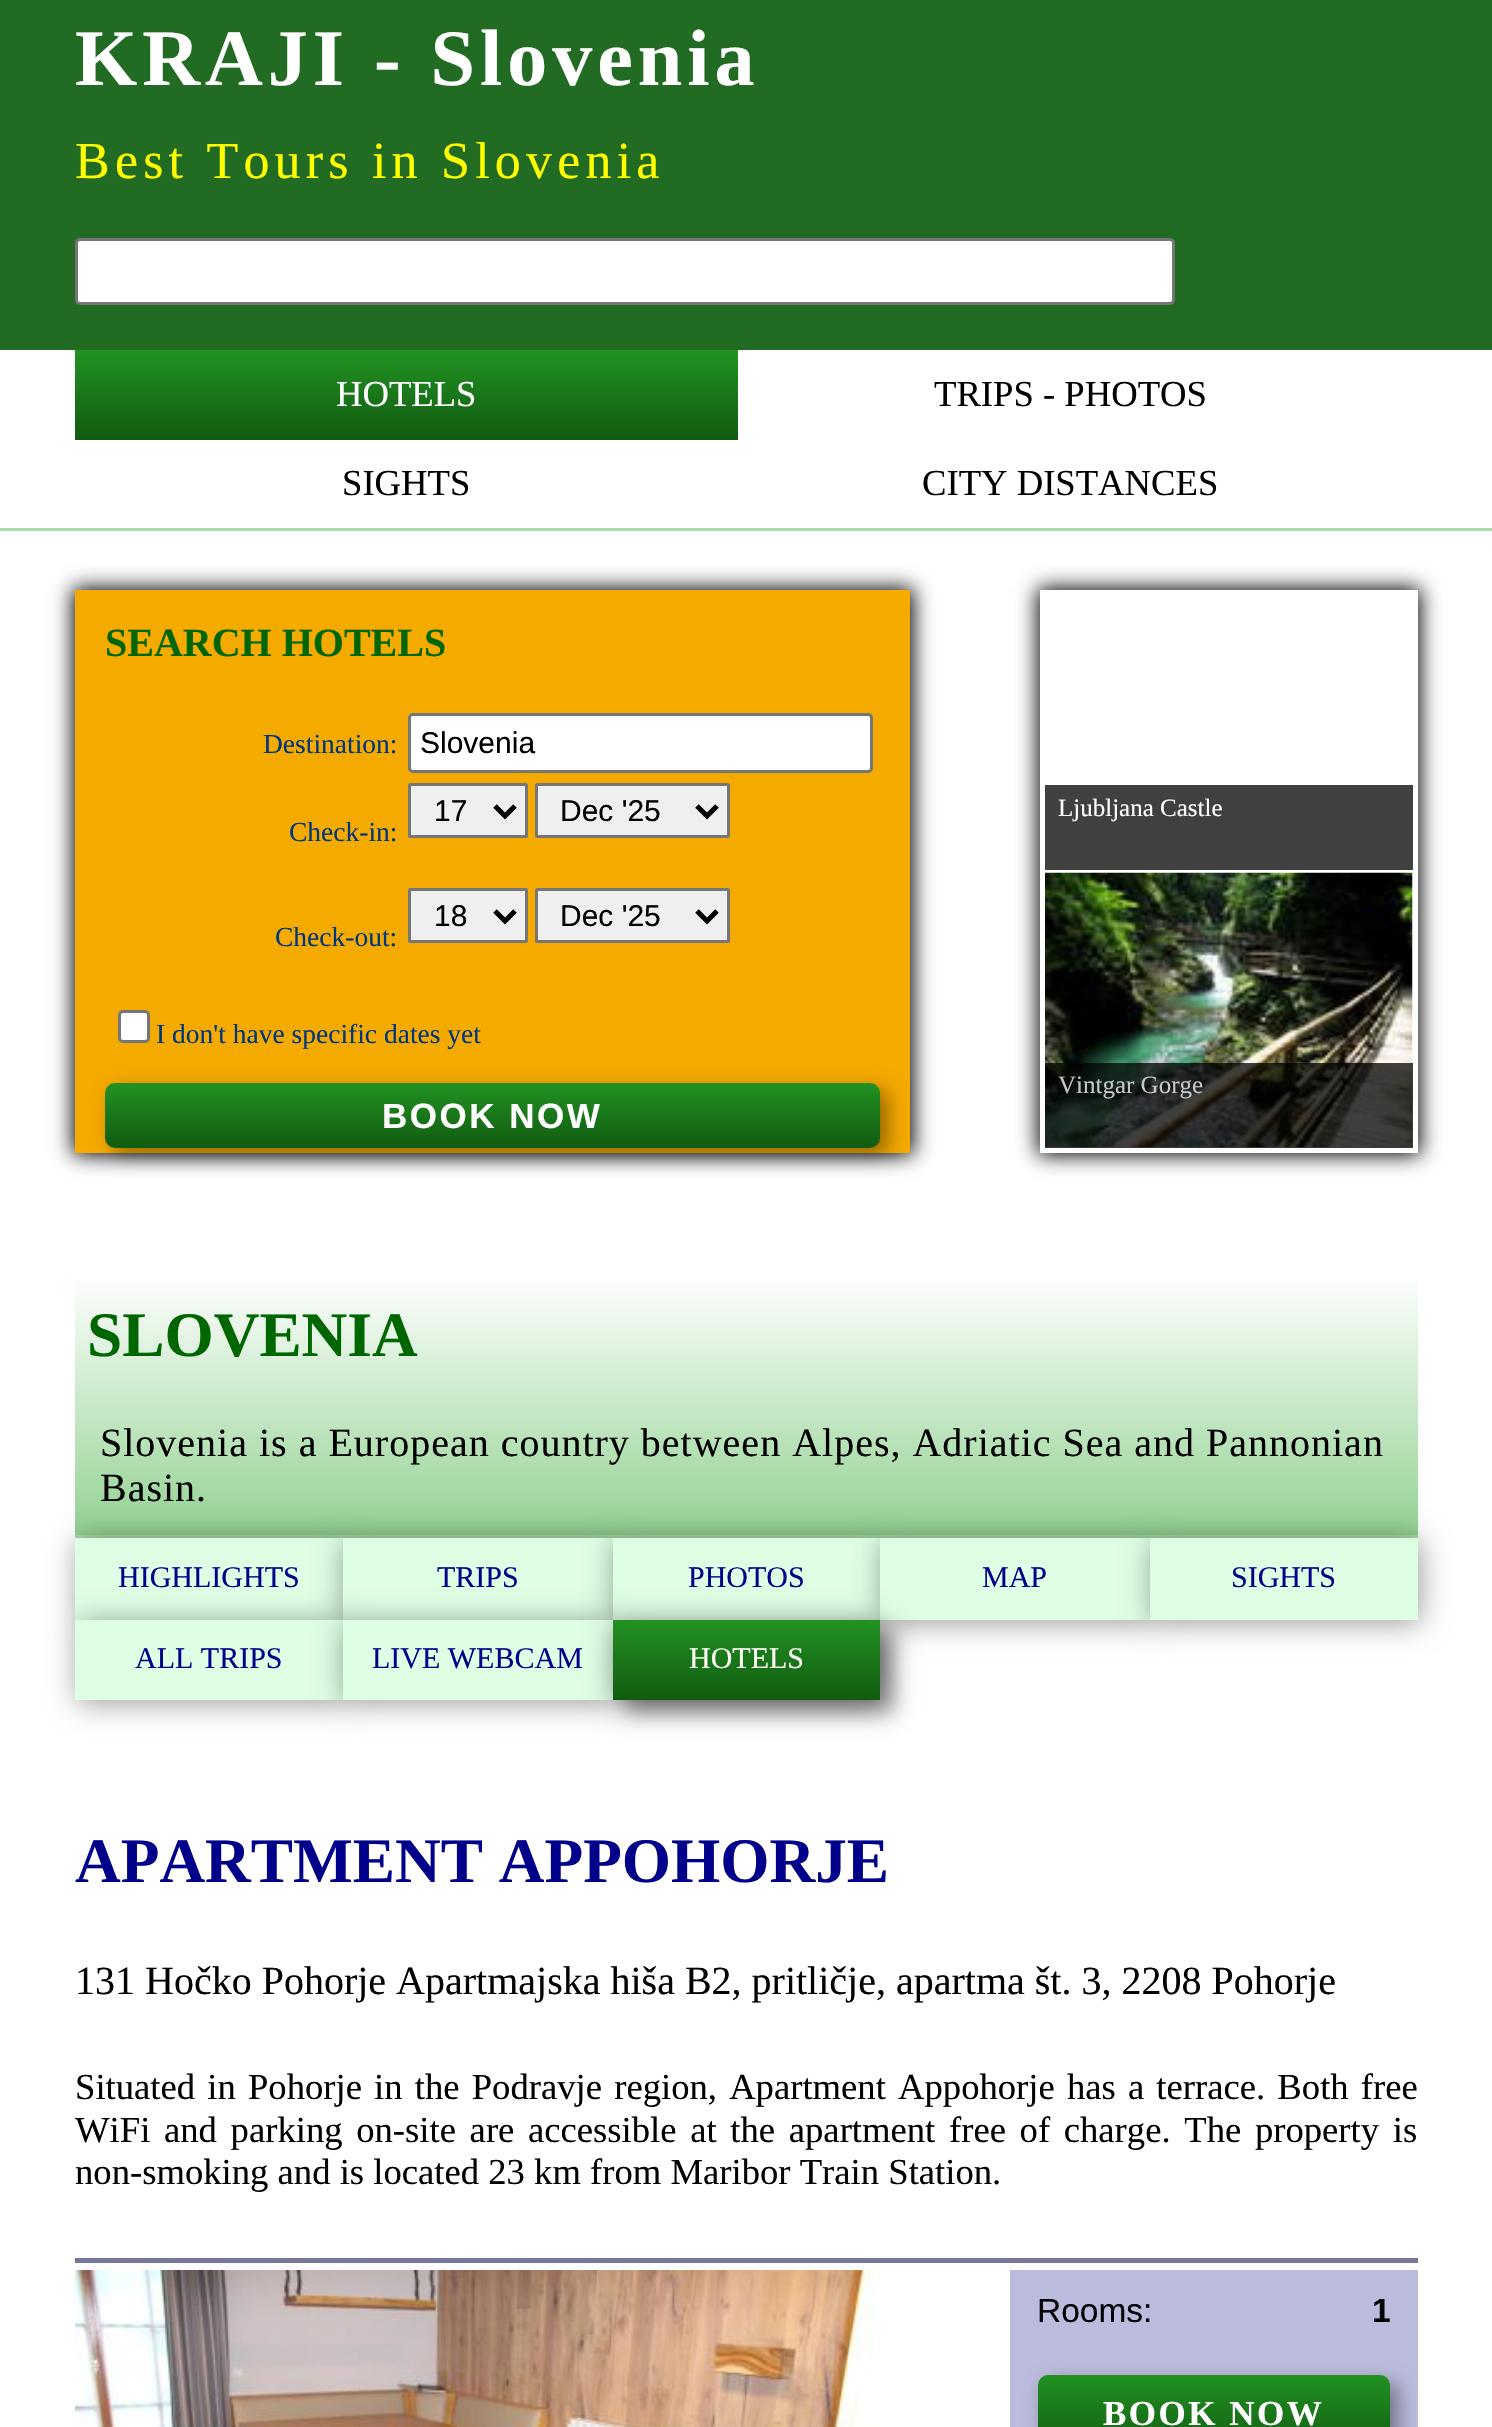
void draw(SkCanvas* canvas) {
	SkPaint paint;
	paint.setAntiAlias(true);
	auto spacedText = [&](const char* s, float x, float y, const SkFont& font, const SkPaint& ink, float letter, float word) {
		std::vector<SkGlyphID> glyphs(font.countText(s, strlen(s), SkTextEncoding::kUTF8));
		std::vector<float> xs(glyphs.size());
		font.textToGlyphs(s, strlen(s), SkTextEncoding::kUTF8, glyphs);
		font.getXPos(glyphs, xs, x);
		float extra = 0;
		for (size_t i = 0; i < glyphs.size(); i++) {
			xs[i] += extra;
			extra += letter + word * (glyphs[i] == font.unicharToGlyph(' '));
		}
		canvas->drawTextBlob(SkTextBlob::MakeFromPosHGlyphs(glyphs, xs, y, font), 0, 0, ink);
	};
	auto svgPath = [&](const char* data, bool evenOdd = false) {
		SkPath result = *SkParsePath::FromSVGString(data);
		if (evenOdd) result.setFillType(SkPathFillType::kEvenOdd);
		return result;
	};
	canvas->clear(0xffffffff);
	paint.setColor(0xff226b22);
	canvas->drawRect(SkRect::MakeXYWH(0, 0, 1492, 350), paint);
	SkFont f1(fontMgr->matchFamilyStyle("Liberation Serif", SkFontStyle::Bold()), 80);
	f1.setSubpixel(true);
	paint.setColor(0xffffffff);
	spacedText("KRAJI - Slovenia", 75, 85, f1, paint, 5, 0);
	SkFont f2(fontMgr->matchFamilyStyle("Liberation Serif", SkFontStyle::Normal()), 52);
	f2.setSubpixel(true);
	paint.setColor(0xffffff00);
	spacedText("Best Tours in Slovenia", 75, 178, f2, paint, 5.2, 0);
	paint.setColor(0xffffffff);
	canvas->drawRoundRect(SkRect::MakeXYWH(76.5, 239.5, 1097, 64), 3.5, 3.5, paint);
	paint.setStroke(true);
	paint.setStrokeWidth(3);
	paint.setColor(0xff767676);
	canvas->drawRoundRect(SkRect::MakeXYWH(76.5, 239.5, 1097, 64), 3.5, 3.5, paint);
	paint.setStroke(false);
	{
		const SkColor colors[] = {0xff115b11, 0xff229222};
		const float stops[] = {0, 1};
		const SkPoint ends[] = {{406, 440}, {406, 350}};
		paint.setShader(SkGradientShader::MakeLinear(ends, colors, stops, 2, SkTileMode::kClamp));
		paint.setAlpha(255);
	}
	canvas->drawRect(SkRect::MakeXYWH(75, 350, 663, 90), paint);
	SkFont f3(fontMgr->matchFamilyStyle("Liberation Serif", SkFontStyle::Normal()), 36.65);
	f3.setSubpixel(true);
	paint.setShader(nullptr);
	paint.setColor(0xffffffff);
	canvas->drawString("HOTELS", 336, 406, f3, paint);
	paint.setColor(0xff000000);
	canvas->drawString("TRIPS - PHOTOS", 934, 406, f3, paint);
	canvas->drawString("SIGHTS", 342, 495, f3, paint);
	canvas->drawString("CITY DISTANCES", 922, 495, f3, paint);
	paint.setColor(0xffaaddaa);
	canvas->drawRect(SkRect::MakeXYWH(0, 528, 1492, 3), paint);
	paint.setColor(0xff000000);
	paint.setMaskFilter(SkMaskFilter::MakeBlur(kNormal_SkBlurStyle, 10));
	canvas->drawRect(SkRect::MakeXYWH(73, 588, 840, 567), paint);
	paint.setMaskFilter(nullptr);
	paint.setColor(0xfff5aa00);
	canvas->drawRect(SkRect::MakeXYWH(75, 590, 835, 563), paint);
	SkFont f4(fontMgr->matchFamilyStyle("Liberation Serif", SkFontStyle::Bold()), 40);
	f4.setSubpixel(true);
	paint.setColor(0xff006600);
	canvas->drawString("SEARCH HOTELS", 105, 656, f4, paint);
	SkFont f5(fontMgr->matchFamilyStyle("Liberation Serif", SkFontStyle::Normal()), 27.5);
	f5.setSubpixel(true);
	paint.setColor(0xff003580);
	canvas->drawString("Destination:", 263, 753, f5, paint);
	paint.setColor(0xffffffff);
	canvas->drawRoundRect(SkRect::MakeXYWH(409.5, 714.5, 462, 57), 3.5, 3.5, paint);
	paint.setStroke(true);
	paint.setColor(0xff767676);
	canvas->drawRoundRect(SkRect::MakeXYWH(409.5, 714.5, 462, 57), 3.5, 3.5, paint);
	SkFont f6(fontMgr->matchFamilyStyle("Liberation Sans", SkFontStyle::Normal()), 30);
	f6.setSubpixel(true);
	paint.setStroke(false);
	paint.setColor(0xff000000);
	canvas->drawString("Slovenia", 420, 753, f6, paint);
	paint.setColor(0xffefefef);
	canvas->drawRoundRect(SkRect::MakeXYWH(409.5, 784.5, 117, 52), 1, 1, paint);
	paint.setStroke(true);
	paint.setColor(0xff767676);
	canvas->drawRoundRect(SkRect::MakeXYWH(409.5, 784.5, 117, 52), 1, 1, paint);
	paint.setStrokeWidth(5);
	paint.setColor(0xff000000);
	canvas->drawPath(svgPath("M495 806L505 816L515 806"), paint);
	paint.setStroke(false);
	canvas->drawString("17", 434, 821, f6, paint);
	paint.setColor(0xffefefef);
	canvas->drawRoundRect(SkRect::MakeXYWH(536.5, 784.5, 192, 52), 1, 1, paint);
	paint.setStroke(true);
	paint.setStrokeWidth(3);
	paint.setColor(0xff767676);
	canvas->drawRoundRect(SkRect::MakeXYWH(536.5, 784.5, 192, 52), 1, 1, paint);
	paint.setStrokeWidth(5);
	paint.setColor(0xff000000);
	canvas->drawPath(svgPath("M697 806L707 816L717 806"), paint);
	paint.setStroke(false);
	canvas->drawString("Dec '25", 560, 821, f6, paint);
	paint.setColor(0xff003580);
	canvas->drawString("Check-in:", 289, 841, f5, paint);
	paint.setColor(0xffefefef);
	canvas->drawRoundRect(SkRect::MakeXYWH(409.5, 889.5, 117, 52), 1, 1, paint);
	paint.setStroke(true);
	paint.setStrokeWidth(3);
	paint.setColor(0xff767676);
	canvas->drawRoundRect(SkRect::MakeXYWH(409.5, 889.5, 117, 52), 1, 1, paint);
	paint.setStrokeWidth(5);
	paint.setColor(0xff000000);
	canvas->drawPath(svgPath("M495 911L505 921L515 911"), paint);
	paint.setStroke(false);
	canvas->drawString("18", 434, 926, f6, paint);
	paint.setColor(0xffefefef);
	canvas->drawRoundRect(SkRect::MakeXYWH(536.5, 889.5, 192, 52), 1, 1, paint);
	paint.setStroke(true);
	paint.setStrokeWidth(3);
	paint.setColor(0xff767676);
	canvas->drawRoundRect(SkRect::MakeXYWH(536.5, 889.5, 192, 52), 1, 1, paint);
	paint.setStrokeWidth(5);
	paint.setColor(0xff000000);
	canvas->drawPath(svgPath("M697 911L707 921L717 911"), paint);
	paint.setStroke(false);
	canvas->drawString("Dec '25", 560, 926, f6, paint);
	paint.setColor(0xff003580);
	canvas->drawString("Check-out:", 275, 946, f5, paint);
	paint.setColor(0xffffffff);
	canvas->drawRoundRect(SkRect::MakeXYWH(119.5, 1011.5, 29, 30), 3.5, 3.5, paint);
	paint.setStroke(true);
	paint.setStrokeWidth(3);
	paint.setColor(0xff767676);
	canvas->drawRoundRect(SkRect::MakeXYWH(119.5, 1011.5, 29, 30), 3.5, 3.5, paint);
	paint.setStroke(false);
	paint.setColor(0xff003580);
	canvas->drawString("I don't have specific dates yet", 156, 1043, f5, paint);
	paint.setColor(0x66000000);
	paint.setMaskFilter(SkMaskFilter::MakeBlur(kNormal_SkBlurStyle, 10));
	canvas->drawRoundRect(SkRect::MakeXYWH(113, 1090, 775, 65), 10, 10, paint);
	paint.setMaskFilter(nullptr);
	{
		const SkColor colors[] = {0xff115b11, 0xff229222};
		const float stops[] = {0, 1};
		const SkPoint ends[] = {{493, 1148}, {493, 1083}};
		paint.setShader(SkGradientShader::MakeLinear(ends, colors, stops, 2, SkTileMode::kClamp));
		paint.setAlpha(255);
	}
	canvas->drawRoundRect(SkRect::MakeXYWH(105, 1083, 775, 65), 10, 10, paint);
	SkFont f7(fontMgr->matchFamilyStyle("Liberation Sans", SkFontStyle::Bold()), 35);
	f7.setSubpixel(true);
	paint.setShader(nullptr);
	paint.setColor(0xffffffff);
	spacedText("BOOK NOW", 382, 1128, f7, paint, 2.5, 0);
	paint.setColor(0xff000000);
	paint.setMaskFilter(SkMaskFilter::MakeBlur(kNormal_SkBlurStyle, 10));
	canvas->drawRect(SkRect::MakeXYWH(1038, 588, 382, 567), paint);
	paint.setMaskFilter(nullptr);
	paint.setColor(0xffffffff);
	canvas->drawRect(SkRect::MakeXYWH(1040, 590, 378, 563), paint);
	paint.setColor(0xff404040);
	canvas->drawRect(SkRect::MakeXYWH(1045, 785, 368, 85), paint);
	SkFont f8(fontMgr->matchFamilyStyle("Liberation Serif", SkFontStyle::Normal()), 25);
	f8.setSubpixel(true);
	paint.setColor(0xffffffff);
	canvas->drawString("Ljubljana Castle", 1058, 816, f8, paint);
	canvas->drawImageRect(SkImages::DeferredFromEncodedData(SkData::MakeFromFileName("img1.png")), SkRect::MakeXYWH(1045, 872, 368, 276), SkSamplingOptions());
	paint.setColor(0xbf000000);
	canvas->drawRect(SkRect::MakeXYWH(1045, 1063, 368, 85), paint);
	paint.setColor(0xffc5c6c6);
	canvas->drawString("Vintgar Gorge", 1058, 1093, f8, paint);
	{
		const SkColor colors[] = {0xff92d292, 0xffffffff};
		const float stops[] = {0, 1};
		const SkPoint ends[] = {{746, 1535}, {746, 1273}};
		paint.setShader(SkGradientShader::MakeLinear(ends, colors, stops, 2, SkTileMode::kClamp));
		paint.setAlpha(255);
	}
	canvas->drawRect(SkRect::MakeXYWH(75, 1279, 1343, 256), paint);
	SkFont f9(fontMgr->matchFamilyStyle("Liberation Serif", SkFontStyle::Bold()), 63.3);
	f9.setSubpixel(true);
	paint.setShader(nullptr);
	paint.setColor(0xff006600);
	canvas->drawString("SLOVENIA", 87, 1356, f9, paint);
	SkFont f10(fontMgr->matchFamilyStyle("Liberation Serif", SkFontStyle::Normal()), 40);
	f10.setSubpixel(true);
	paint.setColor(0xff000000);
	spacedText("Slovenia is a European country between Alpes, Adriatic Sea and Pannonian", 100, 1456, f10, paint, 1, 0);
	spacedText("Basin.", 100, 1501, f10, paint, 1, 0);
	paint.setColor(0xffaaddaa);
	canvas->drawRect(SkRect::MakeXYWH(75, 1535, 1343, 3), paint);
	paint.setColor(0x66000000);
	paint.setMaskFilter(SkMaskFilter::MakeBlur(kNormal_SkBlurStyle, 15));
	canvas->drawRect(SkRect::MakeXYWH(78, 1540, 267, 83), paint);
	paint.setMaskFilter(nullptr);
	paint.setColor(0xffdfffe5);
	canvas->drawRect(SkRect::MakeXYWH(75, 1538, 268, 82), paint);
	SkFont f11(fontMgr->matchFamilyStyle("Liberation Serif", SkFontStyle::Normal()), 30);
	f11.setSubpixel(true);
	paint.setColor(0xff00008b);
	canvas->drawString("HIGHLIGHTS", 118, 1587, f11, paint);
	paint.setColor(0x66000000);
	paint.setMaskFilter(SkMaskFilter::MakeBlur(kNormal_SkBlurStyle, 15));
	canvas->drawRect(SkRect::MakeXYWH(345, 1540, 270, 83), paint);
	paint.setMaskFilter(nullptr);
	paint.setColor(0xffdfffe5);
	canvas->drawRect(SkRect::MakeXYWH(343, 1538, 270, 82), paint);
	paint.setColor(0xff00008b);
	canvas->drawString("TRIPS", 437, 1587, f11, paint);
	paint.setColor(0x66000000);
	paint.setMaskFilter(SkMaskFilter::MakeBlur(kNormal_SkBlurStyle, 15));
	canvas->drawRect(SkRect::MakeXYWH(615, 1540, 268, 83), paint);
	paint.setMaskFilter(nullptr);
	paint.setColor(0xffdfffe5);
	canvas->drawRect(SkRect::MakeXYWH(613, 1538, 267, 82), paint);
	paint.setColor(0xff00008b);
	canvas->drawString("PHOTOS", 688, 1587, f11, paint);
	paint.setColor(0x66000000);
	paint.setMaskFilter(SkMaskFilter::MakeBlur(kNormal_SkBlurStyle, 15));
	canvas->drawRect(SkRect::MakeXYWH(883, 1540, 270, 83), paint);
	paint.setMaskFilter(nullptr);
	paint.setColor(0xffdfffe5);
	canvas->drawRect(SkRect::MakeXYWH(880, 1538, 270, 82), paint);
	paint.setColor(0xff00008b);
	canvas->drawString("MAP", 982, 1587, f11, paint);
	paint.setColor(0x66000000);
	paint.setMaskFilter(SkMaskFilter::MakeBlur(kNormal_SkBlurStyle, 15));
	canvas->drawRect(SkRect::MakeXYWH(1153, 1540, 267, 83), paint);
	paint.setMaskFilter(nullptr);
	paint.setColor(0xffdfffe5);
	canvas->drawRect(SkRect::MakeXYWH(1150, 1538, 268, 82), paint);
	paint.setColor(0xff00008b);
	canvas->drawString("SIGHTS", 1231, 1587, f11, paint);
	paint.setColor(0x66000000);
	paint.setMaskFilter(SkMaskFilter::MakeBlur(kNormal_SkBlurStyle, 15));
	canvas->drawRect(SkRect::MakeXYWH(78, 1623, 267, 80), paint);
	paint.setMaskFilter(nullptr);
	paint.setColor(0xffdfffe5);
	canvas->drawRect(SkRect::MakeXYWH(75, 1620, 268, 80), paint);
	paint.setColor(0xff00008b);
	canvas->drawString("ALL TRIPS", 135, 1668, f11, paint);
	paint.setColor(0x66000000);
	paint.setMaskFilter(SkMaskFilter::MakeBlur(kNormal_SkBlurStyle, 15));
	canvas->drawRect(SkRect::MakeXYWH(345, 1623, 270, 80), paint);
	paint.setMaskFilter(nullptr);
	paint.setColor(0xffdfffe5);
	canvas->drawRect(SkRect::MakeXYWH(343, 1620, 270, 80), paint);
	paint.setColor(0xff00008b);
	canvas->drawString("LIVE WEBCAM", 372, 1668, f11, paint);
	paint.setColor(0x66000000);
	paint.setMaskFilter(SkMaskFilter::MakeBlur(kNormal_SkBlurStyle, 15));
	canvas->drawRect(SkRect::MakeXYWH(615, 1623, 268, 80), paint);
	paint.setMaskFilter(nullptr);
	paint.setMaskFilter(SkMaskFilter::MakeBlur(kNormal_SkBlurStyle, 10));
	canvas->drawRect(SkRect::MakeXYWH(625, 1633, 268, 80), paint);
	paint.setMaskFilter(nullptr);
	{
		const SkColor colors[] = {0xff115b11, 0xff229222};
		const float stops[] = {0, 1};
		const SkPoint ends[] = {{746, 1700}, {746, 1620}};
		paint.setShader(SkGradientShader::MakeLinear(ends, colors, stops, 2, SkTileMode::kClamp));
		paint.setAlpha(255);
	}
	canvas->drawRect(SkRect::MakeXYWH(613, 1620, 267, 80), paint);
	paint.setShader(nullptr);
	paint.setColor(0xfffffff7);
	canvas->drawString("HOTELS", 689, 1668, f11, paint);
	paint.setColor(0xff00008b);
	canvas->drawString("APARTMENT APPOHORJE", 75, 1882, f9, paint);
	paint.setColor(0xff000000);
	canvas->drawString("131 Hočko Pohorje Apartmajska hiša B2, pritličje, apartma št. 3, 2208 Pohorje", 75, 1994, f10, paint);
	spacedText("Situated in Pohorje in the Podravje region, Apartment Appohorje has a terrace. Both free", 75, 2099, f3, paint, 0, 3);
	spacedText("WiFi and parking on-site are accessible at the apartment free of charge. The property is", 75, 2142, f3, paint, 0, 4.5);
	canvas->drawString("non-smoking and is located 23 km from Maribor Train Station.", 75, 2184, f3, paint);
	paint.setColor(0xff777799);
	canvas->drawRect(SkRect::MakeXYWH(75, 2258, 1343, 5), paint);
	canvas->drawImageRect(SkImages::DeferredFromEncodedData(SkData::MakeFromFileName("img2.png")), SkRect::MakeXYWH(75, 2270, 805, 157), SkSamplingOptions());
	paint.setColor(0xffbbbbdd);
	canvas->drawRect(SkRect::MakeXYWH(1010, 2270, 408, 157), paint);
	SkFont f12(fontMgr->matchFamilyStyle("Liberation Sans", SkFontStyle::Normal()), 33.5);
	f12.setSubpixel(true);
	paint.setColor(0xff000000);
	canvas->drawString("Rooms:", 1037, 2322, f12, paint);
	SkFont f13(fontMgr->matchFamilyStyle("Liberation Sans", SkFontStyle::Bold()), 33.5);
	f13.setSubpixel(true);
	canvas->drawString("1", 1372, 2322, f13, paint);
	paint.setColor(0x66000000);
	paint.setMaskFilter(SkMaskFilter::MakeBlur(kNormal_SkBlurStyle, 10));
	canvas->drawRoundRect(SkRect::MakeXYWH(1045, 2383, 353, 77), 10, 10, paint);
	paint.setMaskFilter(nullptr);
	{
		const SkColor colors[] = {0xff115b11, 0xff229222};
		const float stops[] = {0, 1};
		const SkPoint ends[] = {{1214, 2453}, {1214, 2375}};
		paint.setShader(SkGradientShader::MakeLinear(ends, colors, stops, 2, SkTileMode::kClamp));
		paint.setAlpha(255);
	}
	canvas->drawRoundRect(SkRect::MakeXYWH(1038, 2375, 352, 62), 10, 10, paint);
	SkFont f14(fontMgr->matchFamilyStyle("Liberation Serif", SkFontStyle::Bold()), 35);
	f14.setSubpixel(true);
	paint.setShader(nullptr);
	paint.setColor(0xffffffff);
	spacedText("BOOK NOW", 1103, 2425, f14, paint, 2.5, 0);
}
